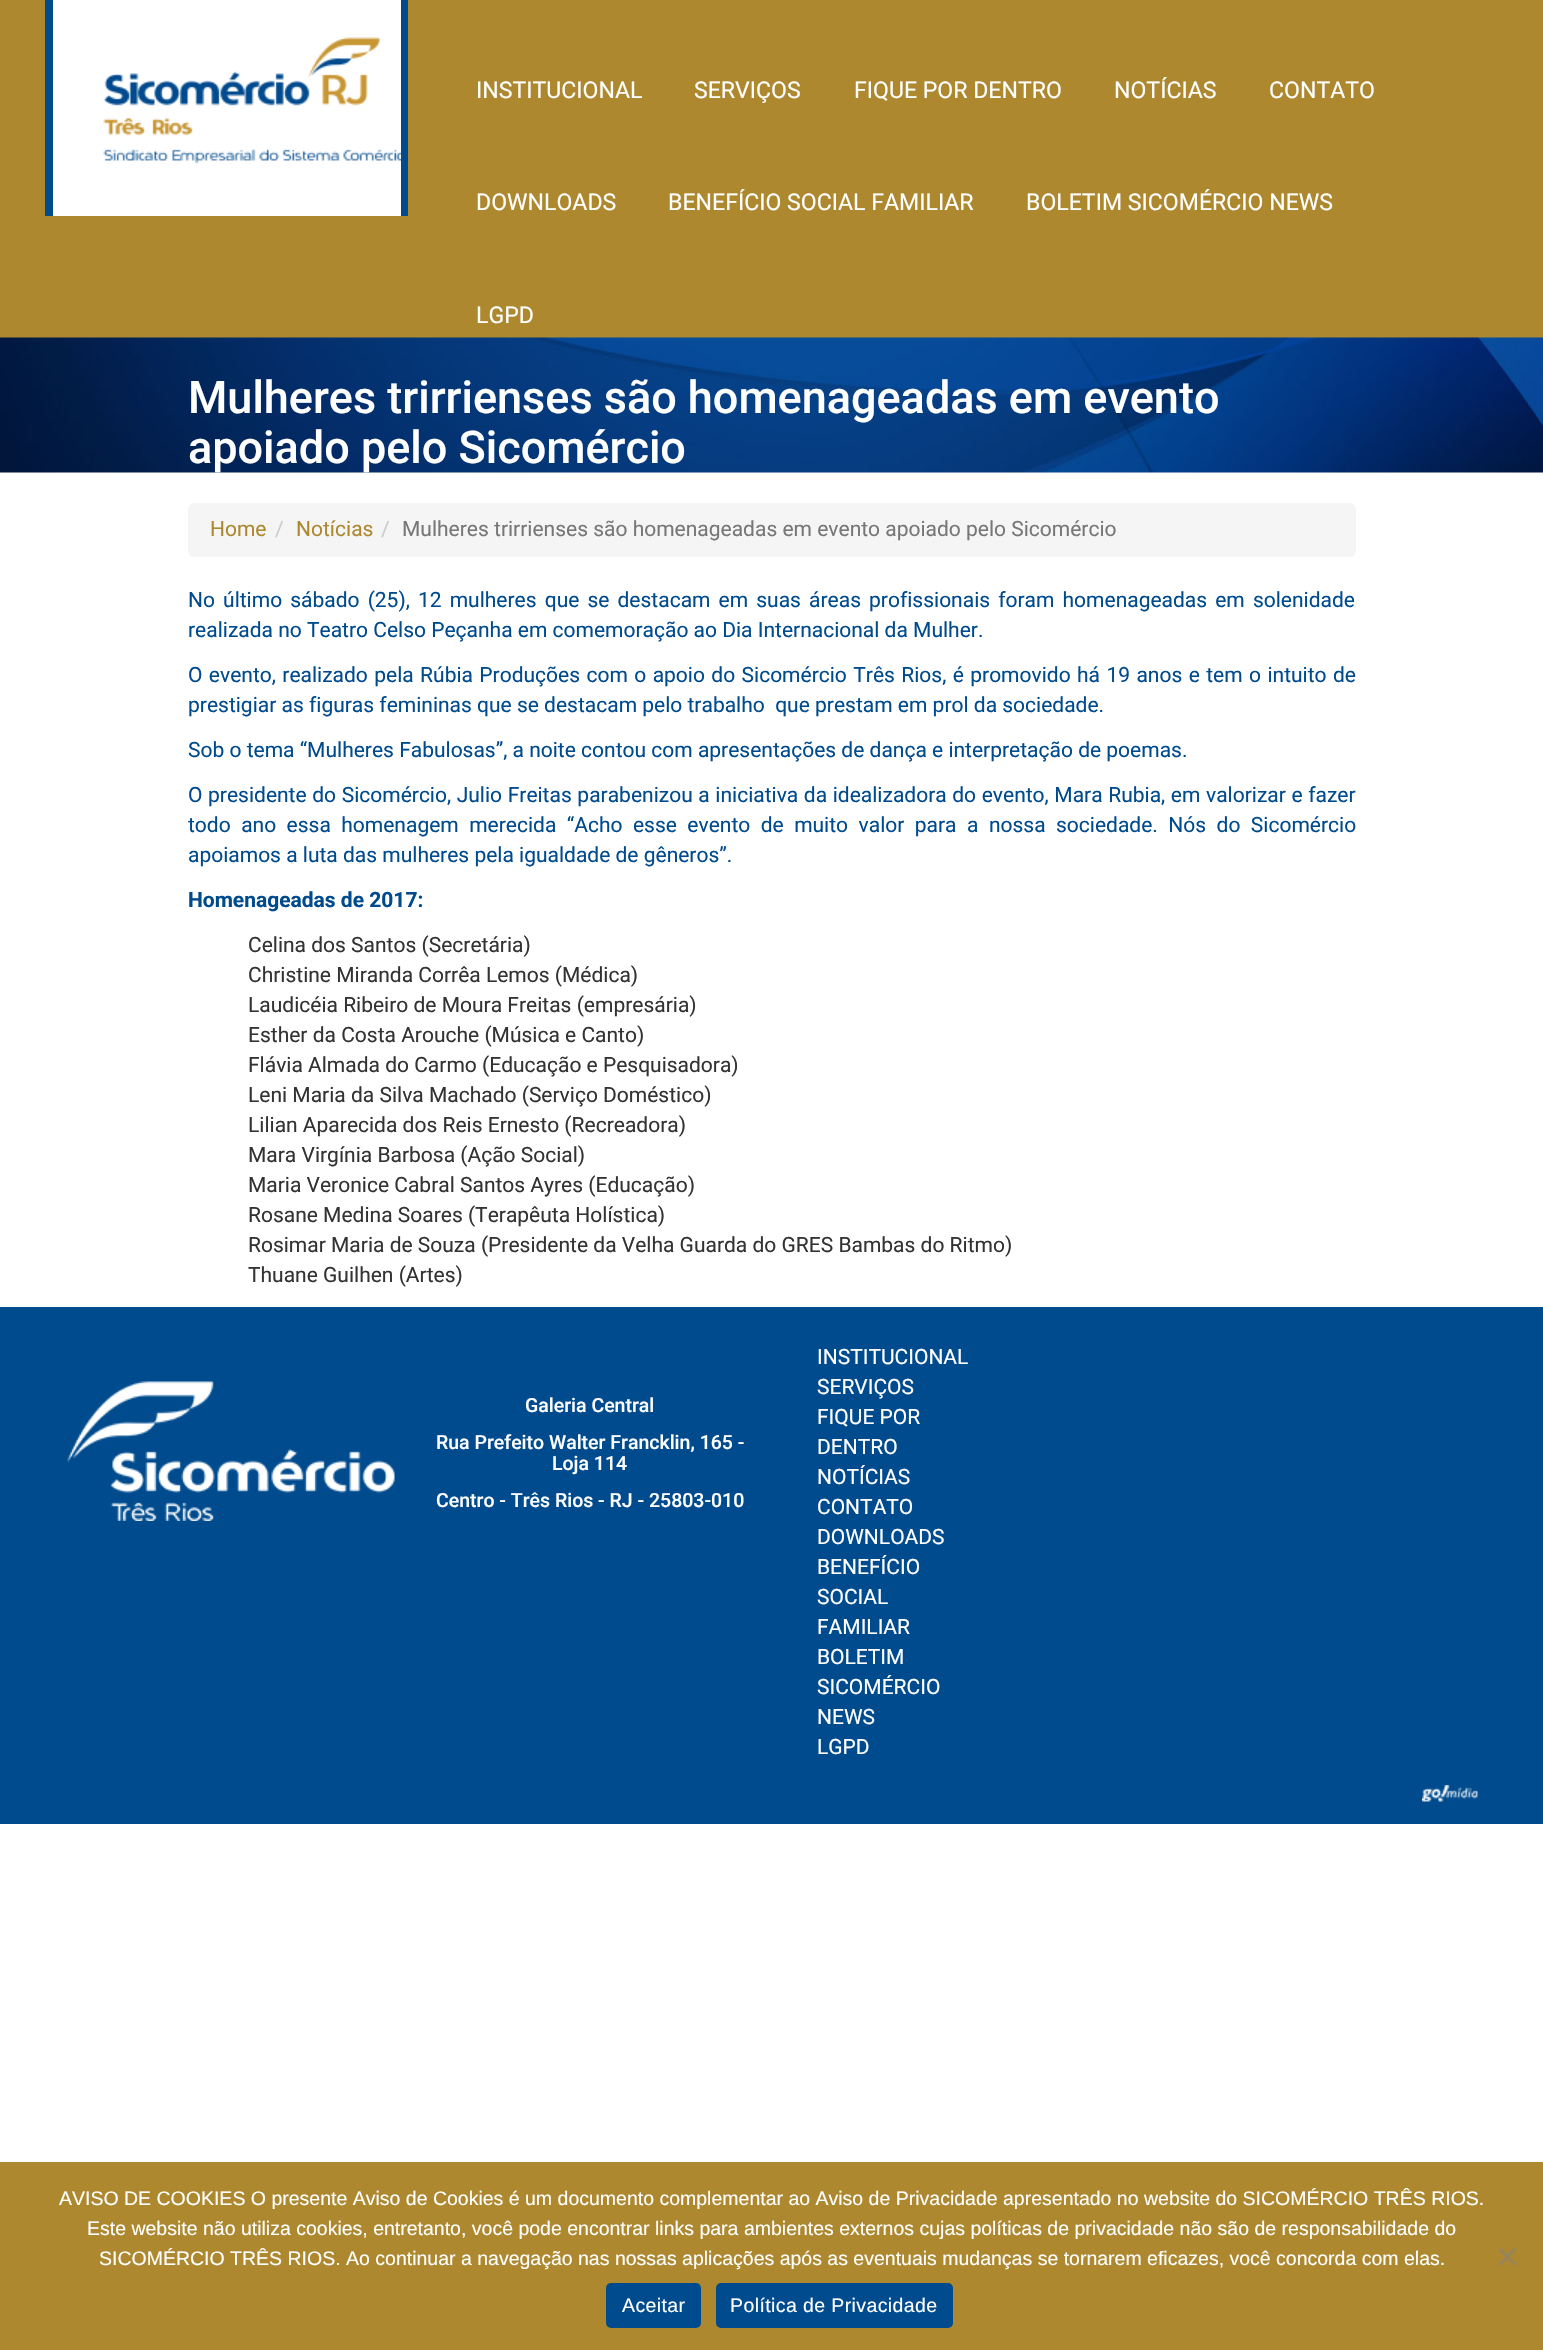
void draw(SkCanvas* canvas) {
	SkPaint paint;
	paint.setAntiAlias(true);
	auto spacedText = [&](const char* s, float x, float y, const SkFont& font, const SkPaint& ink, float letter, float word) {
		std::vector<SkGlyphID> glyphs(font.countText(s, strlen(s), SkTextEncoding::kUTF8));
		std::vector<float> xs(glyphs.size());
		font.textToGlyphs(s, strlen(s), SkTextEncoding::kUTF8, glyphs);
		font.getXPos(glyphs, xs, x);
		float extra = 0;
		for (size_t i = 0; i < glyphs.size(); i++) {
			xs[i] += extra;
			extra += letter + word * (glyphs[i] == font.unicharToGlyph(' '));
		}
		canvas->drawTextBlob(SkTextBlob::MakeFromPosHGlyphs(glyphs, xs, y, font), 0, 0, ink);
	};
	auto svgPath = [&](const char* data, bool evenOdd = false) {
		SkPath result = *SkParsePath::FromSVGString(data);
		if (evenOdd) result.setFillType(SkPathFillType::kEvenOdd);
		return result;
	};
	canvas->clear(0xffffffff);
	paint.setColor(0xffad882f);
	canvas->drawRect(SkRect::MakeXYWH(0, 0, 1543, 338), paint);
	paint.setColor(0xffffffff);
	canvas->drawRect(SkRect::MakeXYWH(53, 0, 348, 216), paint);
	paint.setColor(0xff004b8e);
	canvas->drawRect(SkRect::MakeXYWH(401, 0, 7, 216), paint);
	canvas->drawRect(SkRect::MakeXYWH(45, 0, 8, 216), paint);
	canvas->drawImageRect(SkImages::DeferredFromEncodedData(SkData::MakeFromFileName("img1.png")), SkRect::MakeXYWH(103, 37, 298, 127), SkSamplingOptions());
	SkFont f1(fontMgr->matchFamilyStyle("Roboto", SkFontStyle::Normal()), 23.1);
	f1.setSubpixel(true);
	paint.setColor(0xffffffff);
	canvas->drawString("INSTITUCIONAL", 476, 98, f1, paint);
	canvas->drawString("SERVIÇOS", 694, 98, f1, paint);
	canvas->drawString("FIQUE POR DENTRO", 854, 98, f1, paint);
	canvas->drawString("NOTÍCIAS", 1114, 98, f1, paint);
	canvas->drawString("CONTATO", 1269, 98, f1, paint);
	canvas->drawString("DOWNLOADS", 476, 210, f1, paint);
	canvas->drawString("BENEFÍCIO SOCIAL FAMILIAR", 668, 210, f1, paint);
	canvas->drawString("BOLETIM SICOMÉRCIO NEWS", 1026, 210, f1, paint);
	canvas->drawString("LGPD", 476, 323, f1, paint);
	canvas->drawImageRect(SkImages::DeferredFromEncodedData(SkData::MakeFromFileName("img2.png")), SkRect::MakeXYWH(0, 337, 1543, 136), SkSamplingOptions());
	SkFont f2(fontMgr->matchFamilyStyle("Roboto", SkFontStyle(500, SkFontStyle::kNormal_Width, SkFontStyle::kUpright_Slant)), 45);
	f2.setSubpixel(true);
	canvas->drawString("Mulheres trirrienses são homenageadas em evento", 188, 413, f2, paint);
	canvas->drawString("apoiado pelo Sicomércio", 188, 463, f2, paint);
	paint.setColor(0xfff5f5f5);
	canvas->drawRoundRect(SkRect::MakeXYWH(188, 503, 1168, 54), 6, 6, paint);
	SkFont f3(fontMgr->matchFamilyStyle("Roboto", SkFontStyle::Normal()), 21);
	f3.setSubpixel(true);
	paint.setColor(0xffad882f);
	canvas->drawString("Home", 210, 536, f3, paint);
	paint.setColor(0xffcccccc);
	canvas->drawString("/", 275, 536, f3, paint);
	paint.setColor(0xffad882f);
	canvas->drawString("Notícias", 296, 536, f3, paint);
	paint.setColor(0xffcccccc);
	canvas->drawString("/", 381, 536, f3, paint);
	paint.setColor(0xff777777);
	canvas->drawString("Mulheres trirrienses são homenageadas em evento apoiado pelo Sicomércio", 402, 536, f3, paint);
	paint.setColor(0xff004b8e);
	spacedText("No último sábado (25), 12 mulheres que se destacam em suas áreas profissionais foram homenageadas em solenidade", 188, 607, f3, paint, 0, 2.9);
	canvas->drawString("realizada no Teatro Celso Peçanha em comemoração ao Dia Internacional da Mulher.", 188, 637, f3, paint);
	spacedText("O evento, realizado pela Rúbia Produções com o apoio do Sicomércio Três Rios, é promovido há 19 anos e tem o intuito de", 188, 682, f3, paint, 0, 1.2);
	canvas->drawString("prestigiar as figuras femininas que se destacam pelo trabalho  que prestam em prol da sociedade.", 188, 712, f3, paint);
	canvas->drawString("Sob o tema “Mulheres Fabulosas”, a noite contou com apresentações de dança e interpretação de poemas.", 188, 757, f3, paint);
	spacedText("O presidente do Sicomércio, Julio Freitas parabenizou a iniciativa da idealizadora do evento, Mara Rubia, em valorizar e fazer", 188, 802, f3, paint, 0, 0.4);
	spacedText("todo ano essa homenagem merecida “Acho esse evento de muito valor para a nossa sociedade. Nós do Sicomércio", 188, 832, f3, paint, 0, 5.25);
	canvas->drawString("apoiamos a luta das mulheres pela igualdade de gêneros”.", 188, 862, f3, paint);
	SkFont f4(fontMgr->matchFamilyStyle("Roboto", SkFontStyle::Bold()), 21);
	f4.setSubpixel(true);
	canvas->drawString("Homenageadas de 2017:", 188, 907, f4, paint);
	paint.setColor(0xff333333);
	canvas->drawString("Celina dos Santos (Secretária)", 248, 952, f3, paint);
	canvas->drawString("Christine Miranda Corrêa Lemos (Médica)", 248, 982, f3, paint);
	canvas->drawString("Laudicéia Ribeiro de Moura Freitas (empresária)", 248, 1012, f3, paint);
	canvas->drawString("Esther da Costa Arouche (Música e Canto)", 248, 1042, f3, paint);
	canvas->drawString("Flávia Almada do Carmo (Educação e Pesquisadora)", 248, 1072, f3, paint);
	canvas->drawString("Leni Maria da Silva Machado (Serviço Doméstico)", 248, 1102, f3, paint);
	canvas->drawString("Lilian Aparecida dos Reis Ernesto (Recreadora)", 248, 1132, f3, paint);
	canvas->drawString("Mara Virgínia Barbosa (Ação Social)", 248, 1162, f3, paint);
	canvas->drawString("Maria Veronice Cabral Santos Ayres (Educação)", 248, 1192, f3, paint);
	canvas->drawString("Rosane Medina Soares (Terapêuta Holística)", 248, 1222, f3, paint);
	canvas->drawString("Rosimar Maria de Souza (Presidente da Velha Guarda do GRES Bambas do Ritmo)", 248, 1252, f3, paint);
	canvas->drawString("Thuane Guilhen (Artes)", 248, 1282, f3, paint);
	paint.setColor(0xff004b8e);
	canvas->drawRect(SkRect::MakeXYWH(0, 1307, 1543, 517), paint);
	canvas->drawImageRect(SkImages::DeferredFromEncodedData(SkData::MakeFromFileName("img3.png")), SkRect::MakeXYWH(67, 1381, 328, 140), SkSamplingOptions());
	SkFont f5(fontMgr->matchFamilyStyle("Roboto", SkFontStyle(500, SkFontStyle::kNormal_Width, SkFontStyle::kUpright_Slant)), 19.5);
	f5.setSubpixel(true);
	paint.setColor(0xffffffff);
	canvas->drawString("Galeria Central", 525, 1412, f5, paint);
	canvas->drawString("Rua Prefeito Walter Francklin, 165 -", 436, 1449, f5, paint);
	canvas->drawString("Loja 114", 552, 1470, f5, paint);
	canvas->drawString("Centro - Três Rios - RJ - 25803-010", 436, 1507, f5, paint);
	canvas->drawString("INSTITUCIONAL", 817, 1364, f3, paint);
	canvas->drawString("SERVIÇOS", 817, 1394, f3, paint);
	canvas->drawString("FIQUE POR", 817, 1424, f3, paint);
	canvas->drawString("DENTRO", 817, 1454, f3, paint);
	canvas->drawString("NOTÍCIAS", 817, 1484, f3, paint);
	canvas->drawString("CONTATO", 817, 1514, f3, paint);
	canvas->drawString("DOWNLOADS", 817, 1544, f3, paint);
	canvas->drawString("BENEFÍCIO", 817, 1574, f3, paint);
	canvas->drawString("SOCIAL", 817, 1604, f3, paint);
	canvas->drawString("FAMILIAR", 817, 1634, f3, paint);
	canvas->drawString("BOLETIM", 817, 1664, f3, paint);
	canvas->drawString("SICOMÉRCIO", 817, 1694, f3, paint);
	canvas->drawString("NEWS", 817, 1724, f3, paint);
	canvas->drawString("LGPD", 817, 1754, f3, paint);
	canvas->drawImageRect(SkImages::DeferredFromEncodedData(SkData::MakeFromFileName("img4.png")), SkRect::MakeXYWH(1422, 1785, 56, 17), SkSamplingOptions());
	paint.setColor(0xffad882f);
	canvas->drawRect(SkRect::MakeXYWH(0, 2162, 1543, 188), paint);
	SkFont f6(fontMgr->matchFamilyStyle("Liberation Sans", SkFontStyle::Normal()), 19.5);
	f6.setSubpixel(true);
	paint.setColor(0xffffffff);
	canvas->drawString("AVISO DE COOKIES O presente Aviso de Cookies é um documento complementar ao Aviso de Privacidade apresentado no website do SICOMÉRCIO TRÊS RIOS.", 59, 2205, f6, paint);
	canvas->drawString("Este website não utiliza cookies, entretanto, você pode encontrar links para ambientes externos cujas políticas de privacidade não são de responsabilidade do", 87, 2235, f6, paint);
	canvas->drawString("SICOMÉRCIO TRÊS RIOS. Ao continuar a navegação nas nossas aplicações após as eventuais mudanças se tornarem eficazes, você concorda com elas.", 99, 2265, f6, paint);
	paint.setColor(0xff978458);
	canvas->drawPath(svgPath("M1514.5 2247.5L1516.5 2250L1500.5 2266L1498.5 2263.5Z"), paint);
	canvas->drawPath(svgPath("M1498.5 2250L1500.5 2247.5L1516.5 2263.5L1514.5 2266Z"), paint);
	paint.setColor(0xff004b8e);
	canvas->drawRoundRect(SkRect::MakeXYWH(606, 2283, 95, 45), 5, 5, paint);
	paint.setColor(0xffffffff);
	spacedText("Aceitar", 622, 2312, f6, paint, 0.4, 0);
	paint.setColor(0xff004b8e);
	canvas->drawRoundRect(SkRect::MakeXYWH(716, 2283, 237, 45), 5, 5, paint);
	paint.setColor(0xffffffff);
	spacedText("Política de Privacidade", 730, 2312, f6, paint, 0.4, 0);
}
